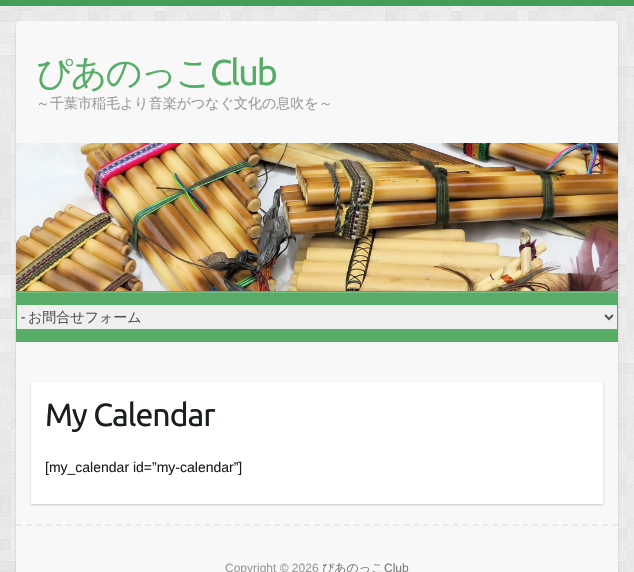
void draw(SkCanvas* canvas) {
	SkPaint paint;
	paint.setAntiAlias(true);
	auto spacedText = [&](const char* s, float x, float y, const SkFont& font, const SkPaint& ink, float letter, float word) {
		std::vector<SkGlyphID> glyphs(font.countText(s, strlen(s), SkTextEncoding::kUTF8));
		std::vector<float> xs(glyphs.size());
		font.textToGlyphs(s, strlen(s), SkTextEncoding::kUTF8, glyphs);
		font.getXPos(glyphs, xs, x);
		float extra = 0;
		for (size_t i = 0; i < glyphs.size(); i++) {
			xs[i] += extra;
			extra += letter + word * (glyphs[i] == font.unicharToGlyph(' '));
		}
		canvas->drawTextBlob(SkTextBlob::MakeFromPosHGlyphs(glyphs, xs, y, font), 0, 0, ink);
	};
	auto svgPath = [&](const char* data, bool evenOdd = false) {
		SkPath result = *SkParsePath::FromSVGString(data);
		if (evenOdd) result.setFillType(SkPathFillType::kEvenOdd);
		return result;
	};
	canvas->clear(0xffffffff);
	canvas->drawImageRect(SkImages::DeferredFromEncodedData(SkData::MakeFromFileName("img1.png")), SkRect::MakeXYWH(0, 6, 634, 566), SkSamplingOptions());
	paint.setColor(0xff439f55);
	canvas->drawRect(SkRect::MakeXYWH(0, 0, 634, 6), paint);
	paint.setColor(0x33000000);
	paint.setMaskFilter(SkMaskFilter::MakeBlur(kNormal_SkBlurStyle, 1));
	canvas->drawRoundRect(SkRect::MakeXYWH(16, 22, 602, 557), 4, 4, paint);
	paint.setMaskFilter(nullptr);
	paint.setColor(0xfff8f8f8);
	canvas->drawRoundRect(SkRect::MakeXYWH(16, 21, 602, 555), 4, 4, paint);
	SkFont f1(fontMgr->matchFamilyStyle("WenQuanYi Zen Hei", SkFontStyle(500, SkFontStyle::kNormal_Width, SkFontStyle::kUpright_Slant)), 36);
	f1.setSubpixel(true);
	paint.setColor(0xff57ad68);
	spacedText("ぴあのっこ", 36, 85, f1, paint, -2, 0);
	SkFont f2(fontMgr->matchFamilyStyle("Ubuntu", SkFontStyle::Normal()), 36);
	f2.setSubpixel(true);
	spacedText("Club", 210, 85, f2, paint, -2, 0);
	SkFont f3(fontMgr->matchFamilyStyle("WenQuanYi Zen Hei", SkFontStyle(500, SkFontStyle::kNormal_Width, SkFontStyle::kUpright_Slant)), 14);
	f3.setSubpixel(true);
	paint.setColor(0xff999999);
	canvas->drawString("～千葉市稲毛より音楽がつなぐ文化の息吹を～", 36, 108, f3, paint);
	canvas->drawImageRect(SkImages::DeferredFromEncodedData(SkData::MakeFromFileName("img2.png")), SkRect::MakeXYWH(16, 143, 602, 148), SkSamplingOptions());
	paint.setColor(0xff57ad68);
	canvas->drawRect(SkRect::MakeXYWH(16, 291, 602, 51), paint);
	paint.setColor(0xff79bd86);
	canvas->drawRect(SkRect::MakeXYWH(17, 292, 600, 1), paint);
	paint.setColor(0xffefefef);
	canvas->drawRect(SkRect::MakeXYWH(17, 305, 600, 24), paint);
	paint.setStroke(true);
	paint.setStrokeWidth(2);
	paint.setColor(0xff555555);
	canvas->drawPath(svgPath("M605 315L609 319L613 315"), paint);
	SkFont f4(fontMgr->matchFamilyStyle("Ubuntu", SkFontStyle::Normal()), 14);
	f4.setSubpixel(true);
	paint.setStroke(false);
	canvas->drawString("-", 21, 322, f4, paint);
	canvas->drawString("お問合せフォーム", 28, 322, f3, paint);
	paint.setColor(0x33000000);
	paint.setMaskFilter(SkMaskFilter::MakeBlur(kNormal_SkBlurStyle, 1));
	canvas->drawRect(SkRect::MakeXYWH(31, 383, 572, 122), paint);
	paint.setMaskFilter(nullptr);
	paint.setColor(0xffffffff);
	canvas->drawRect(SkRect::MakeXYWH(31, 382, 572, 122), paint);
	SkFont f5(fontMgr->matchFamilyStyle("Ubuntu", SkFontStyle::Normal()), 32);
	f5.setSubpixel(true);
	paint.setColor(0xff1b1e1f);
	spacedText("My Calendar", 45, 426, f5, paint, -1, 0);
	SkFont f6(fontMgr->matchFamilyStyle("Liberation Sans", SkFontStyle::Normal()), 14);
	f6.setSubpixel(true);
	canvas->drawString("[my_calendar id=”my-calendar”]", 45, 472, f6, paint);
	paint.setStroke(true);
	paint.setColor(0xffeaeaea);
	paint.setPathEffect(SkDashPathEffect::Make({{6, 3.93f}}, 0));
	canvas->drawPath(svgPath("M16 525H618"), paint);
	paint.setPathEffect(nullptr);
	SkFont f7(fontMgr->matchFamilyStyle("Liberation Sans", SkFontStyle::Normal()), 12);
	f7.setSubpixel(true);
	paint.setStroke(false);
	paint.setColor(0xff999999);
	canvas->drawString("Copyright © 2026", 225, 572, f7, paint);
	SkFont f8(fontMgr->matchFamilyStyle("WenQuanYi Zen Hei", SkFontStyle(500, SkFontStyle::kNormal_Width, SkFontStyle::kUpright_Slant)), 12);
	f8.setSubpixel(true);
	paint.setColor(0xff777777);
	canvas->drawString("ぴあのっこ", 322, 572, f8, paint);
	canvas->drawString("Club", 384, 572, f7, paint);
}
